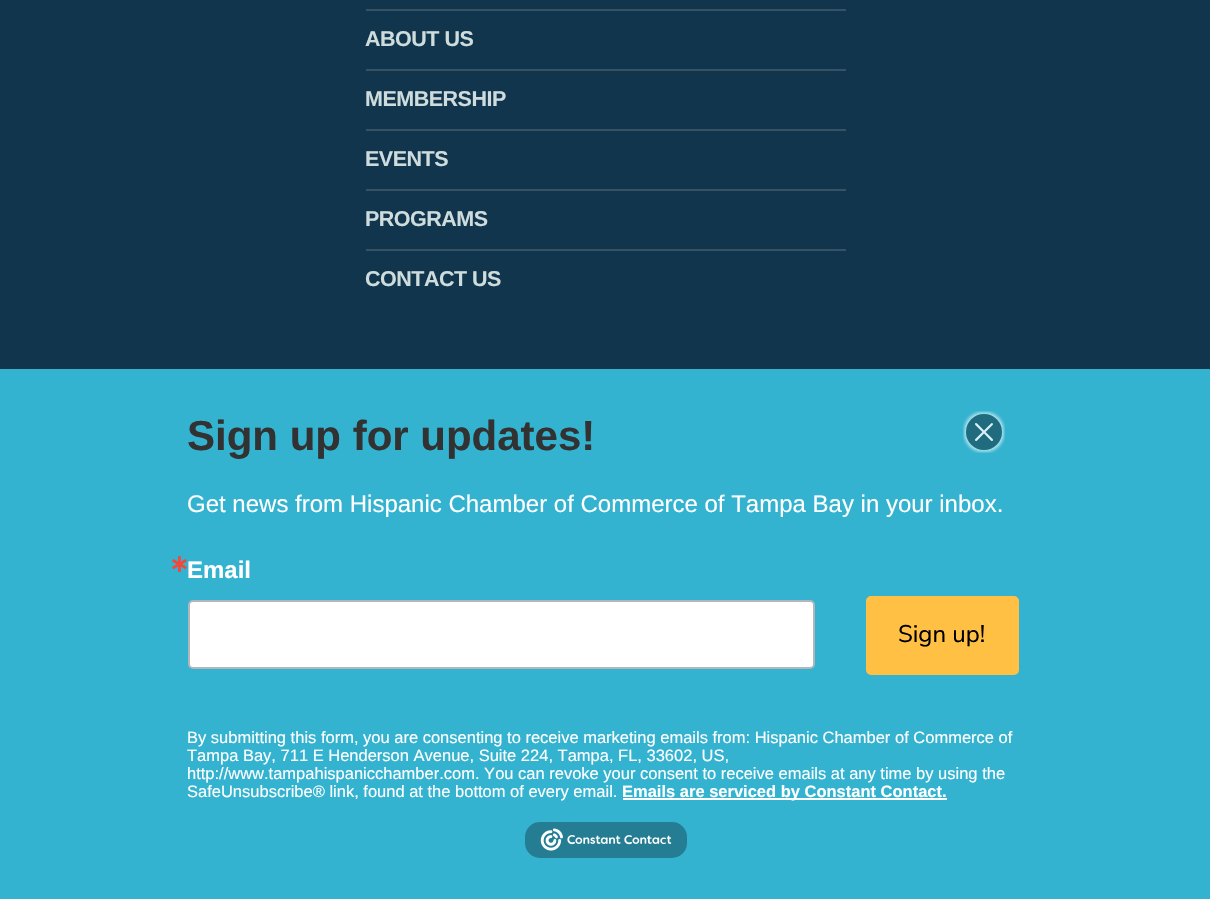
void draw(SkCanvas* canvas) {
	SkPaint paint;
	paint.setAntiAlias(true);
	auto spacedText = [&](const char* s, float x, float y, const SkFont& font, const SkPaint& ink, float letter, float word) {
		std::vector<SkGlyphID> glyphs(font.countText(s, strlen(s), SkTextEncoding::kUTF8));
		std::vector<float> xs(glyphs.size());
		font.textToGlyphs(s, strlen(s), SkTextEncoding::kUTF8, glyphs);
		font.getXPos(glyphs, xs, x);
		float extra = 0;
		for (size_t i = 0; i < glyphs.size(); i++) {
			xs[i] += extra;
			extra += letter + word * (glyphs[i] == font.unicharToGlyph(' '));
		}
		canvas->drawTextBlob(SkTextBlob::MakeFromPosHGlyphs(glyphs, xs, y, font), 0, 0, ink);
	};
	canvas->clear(0xff10354c);
	paint.setColor(0xff365366);
	canvas->drawRect(SkRect::MakeXYWH(366, 9, 480, 2), paint);
	SkFont f1(fontMgr->matchFamilyStyle("Liberation Sans", SkFontStyle::Bold()), 21.5);
	f1.setSubpixel(true);
	paint.setColor(0xffcedcdd);
	spacedText("ABOUT US", 365, 46, f1, paint, -0.5, 0);
	paint.setColor(0xff365366);
	canvas->drawRect(SkRect::MakeXYWH(366, 69, 480, 2), paint);
	paint.setColor(0xffcedcdd);
	spacedText("MEMBERSHIP", 365, 106, f1, paint, -0.5, 0);
	paint.setColor(0xff365366);
	canvas->drawRect(SkRect::MakeXYWH(366, 129, 480, 2), paint);
	paint.setColor(0xffcedcdd);
	spacedText("EVENTS", 365, 166, f1, paint, -0.5, 0);
	paint.setColor(0xff365366);
	canvas->drawRect(SkRect::MakeXYWH(366, 189, 480, 2), paint);
	paint.setColor(0xffcedcdd);
	spacedText("PROGRAMS", 365, 226, f1, paint, -0.5, 0);
	paint.setColor(0xff365366);
	canvas->drawRect(SkRect::MakeXYWH(366, 249, 480, 2), paint);
	paint.setColor(0xffcedcdd);
	spacedText("CONTACT US", 365, 286, f1, paint, -0.5, 0);
	paint.setColor(0xff163548);
	canvas->drawRect(SkRect::MakeXYWH(0, 368, 1210, 1), paint);
	paint.setColor(0xff34b3d0);
	canvas->drawRect(SkRect::MakeXYWH(0, 369, 1210, 530), paint);
	canvas->drawImageRect(SkImages::DeferredFromEncodedData(SkData::MakeFromFileName("img1.png")), SkRect::MakeXYWH(963, 411, 42, 42), SkSamplingOptions());
	SkFont f2(fontMgr->matchFamilyStyle("Liberation Sans", SkFontStyle::Bold()), 42);
	f2.setSubpixel(true);
	paint.setColor(0xff323232);
	canvas->drawString("Sign up for updates!", 187, 450, f2, paint);
	SkFont f3(fontMgr->matchFamilyStyle("Liberation Sans", SkFontStyle::Normal()), 24);
	f3.setSubpixel(true);
	paint.setColor(0xffffffff);
	canvas->drawString("Get news from Hispanic Chamber of Commerce of Tampa Bay in your inbox.", 187, 512, f3, paint);
	SkFont f4(fontMgr->matchFamilyStyle("DejaVu Sans", SkFontStyle::Bold()), 24);
	f4.setSubpixel(true);
	paint.setColor(0xfff5463b);
	canvas->drawString("∗", 169, 572, f4, paint);
	SkFont f5(fontMgr->matchFamilyStyle("Liberation Sans", SkFontStyle::Bold()), 24);
	f5.setSubpixel(true);
	paint.setColor(0xffffffff);
	canvas->drawString("Email", 187, 578, f5, paint);
	canvas->drawRoundRect(SkRect::MakeXYWH(189, 601, 625, 67), 4, 4, paint);
	paint.setStroke(true);
	paint.setStrokeWidth(2);
	paint.setColor(0xffb0b6bb);
	canvas->drawRoundRect(SkRect::MakeXYWH(189, 601, 625, 67), 4, 4, paint);
	paint.setStroke(false);
	paint.setColor(0xffffc043);
	canvas->drawRoundRect(SkRect::MakeXYWH(867, 597, 151, 77), 4, 4, paint);
	paint.setStroke(true);
	canvas->drawRoundRect(SkRect::MakeXYWH(867, 597, 151, 77), 4, 4, paint);
	SkFont f6(fontMgr->matchFamilyStyle("Nunito Sans", SkFontStyle::Normal()), 24);
	f6.setSubpixel(true);
	paint.setStroke(false);
	paint.setColor(0xff000000);
	canvas->drawString("Sign up!", 898, 642, f6, paint);
	SkFont f7(fontMgr->matchFamilyStyle("Liberation Sans", SkFontStyle::Normal()), 16.5);
	f7.setSubpixel(true);
	paint.setColor(0xffffffff);
	canvas->drawString("By submitting this form, you are consenting to receive marketing emails from: Hispanic Chamber of Commerce of", 187, 743, f7, paint);
	canvas->drawString("Tampa Bay, 711 E Henderson Avenue, Suite 224, Tampa, FL, 33602, US,", 187, 761, f7, paint);
	canvas->drawString("http://www.tampahispanicchamber.com. You can revoke your consent to receive emails at any time by using the", 187, 779, f7, paint);
	canvas->drawString("SafeUnsubscribe® link, found at the bottom of every email.", 187, 797, f7, paint);
	canvas->drawRect(SkRect::MakeXYWH(623, 798, 324, 2), paint);
	SkFont f8(fontMgr->matchFamilyStyle("Liberation Sans", SkFontStyle::Bold()), 16.5);
	f8.setSubpixel(true);
	canvas->drawString("Emails are serviced by Constant Contact.", 622, 797, f8, paint);
	paint.setColor(0xff247d92);
	canvas->drawRoundRect(SkRect::MakeXYWH(525, 822, 162, 36), 15, 15, paint);
	canvas->drawImageRect(SkImages::DeferredFromEncodedData(SkData::MakeFromFileName("img2.png")), SkRect::MakeXYWH(540, 828, 132, 23), SkSamplingOptions());
}
